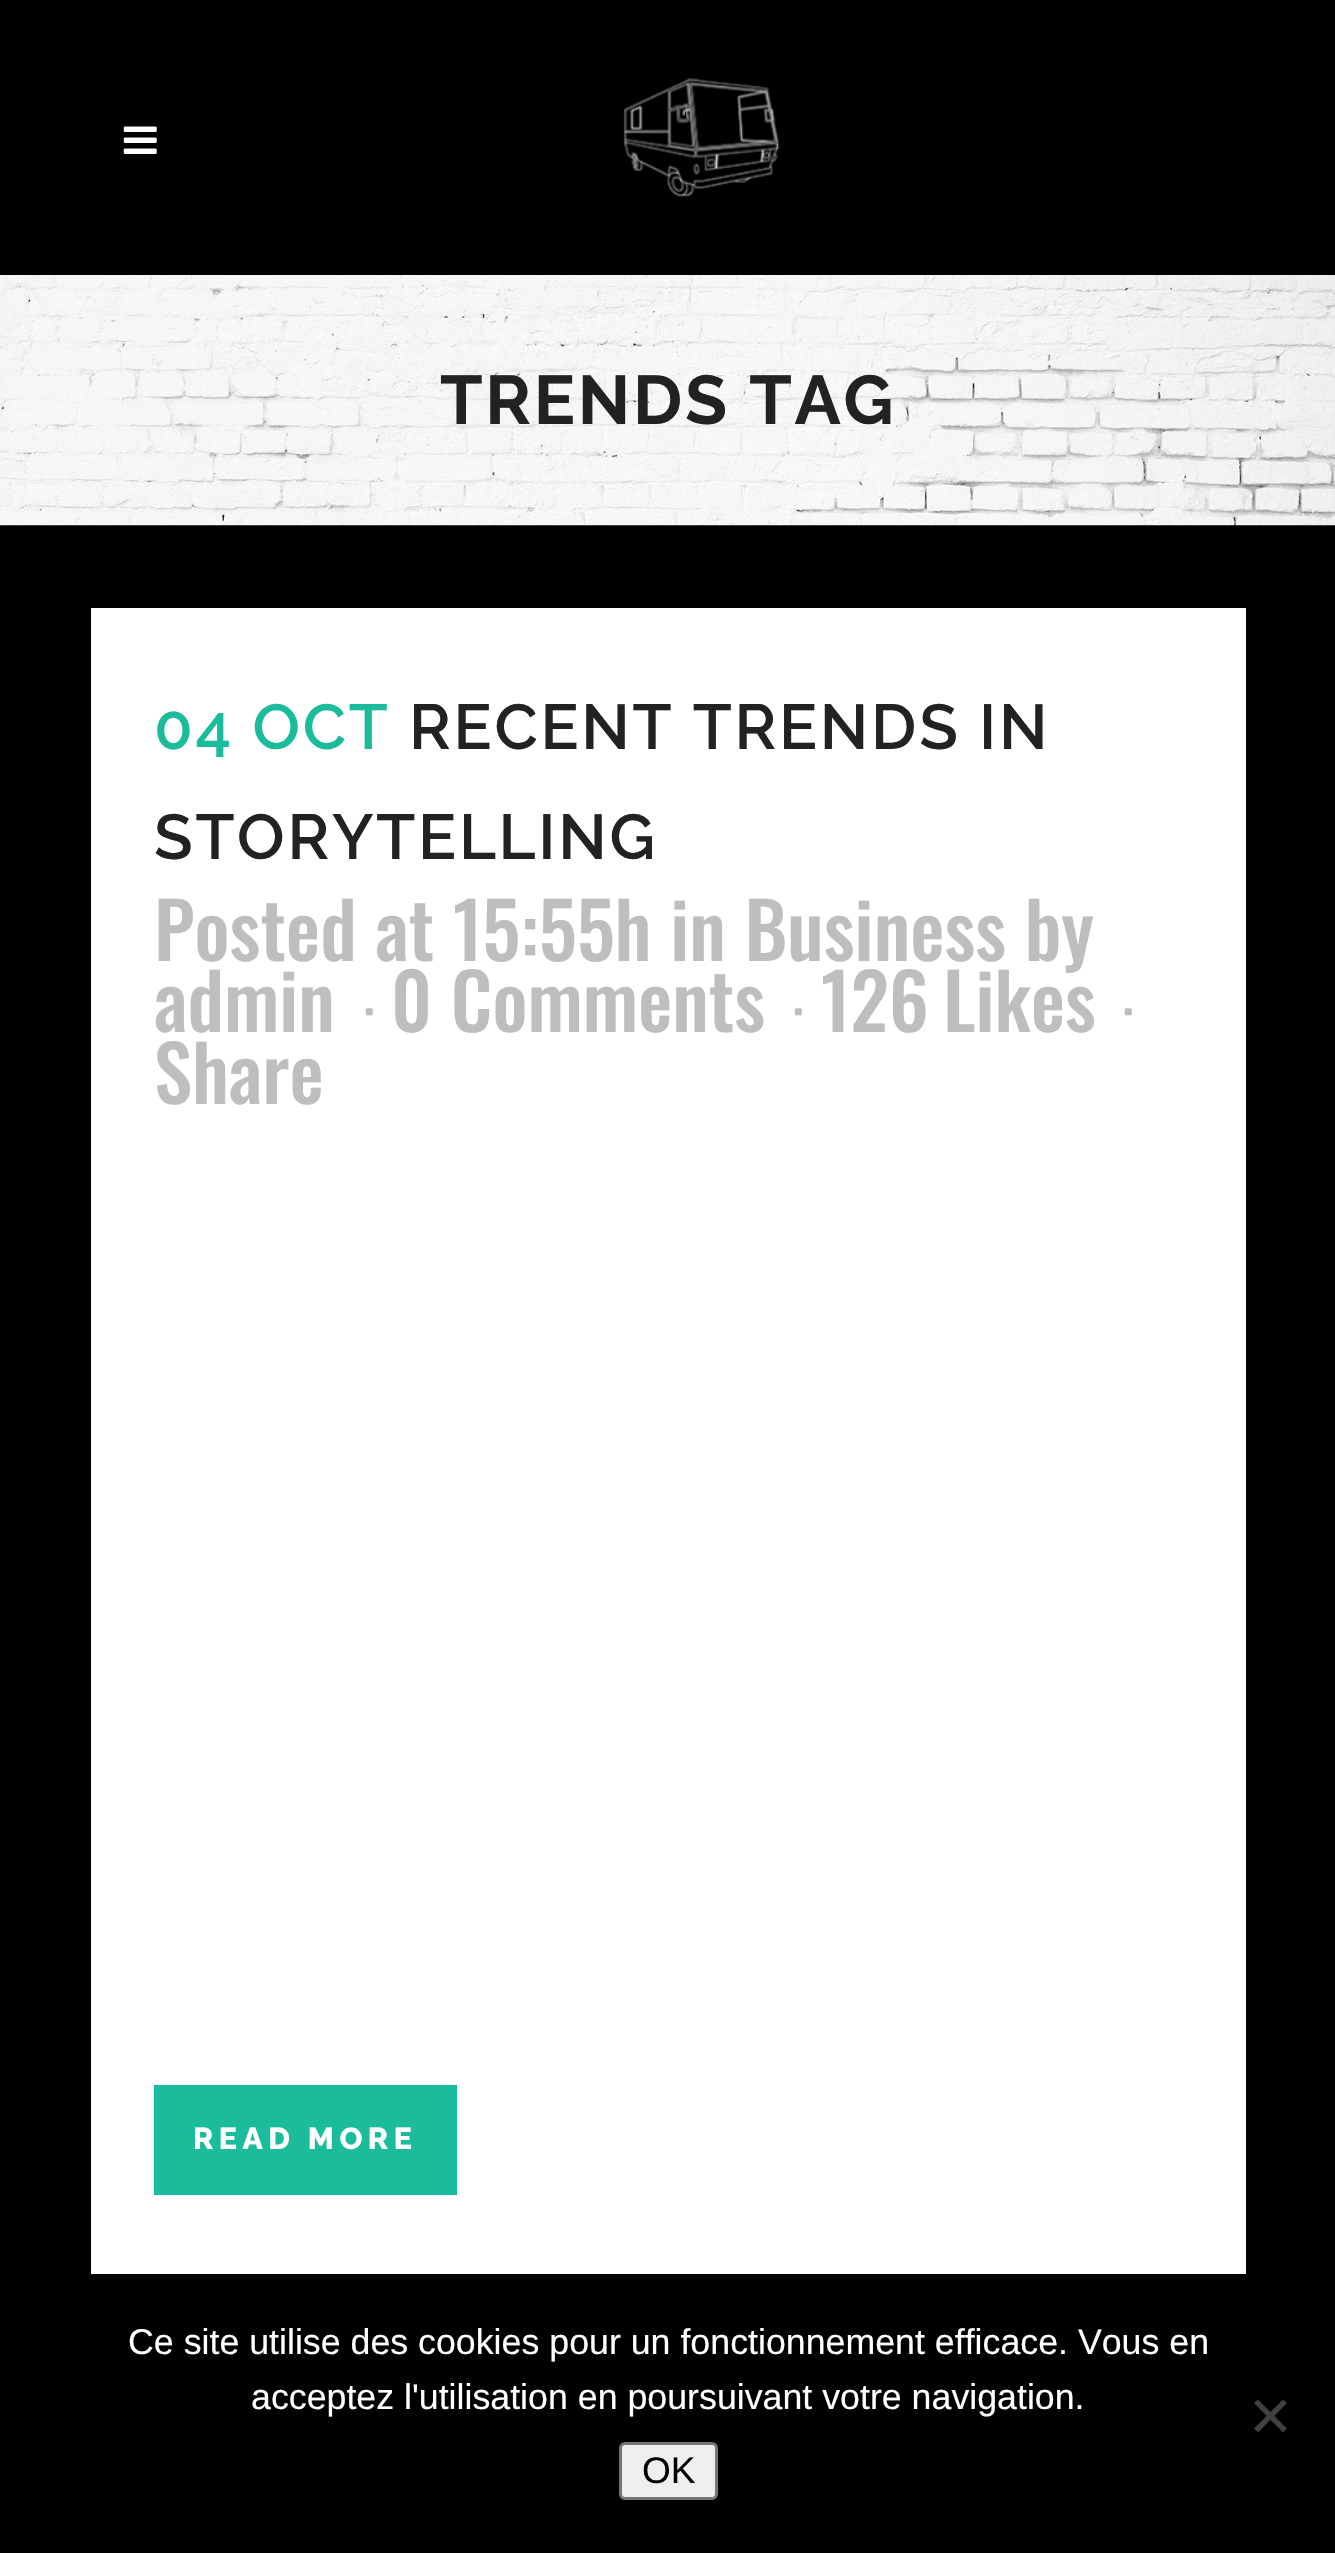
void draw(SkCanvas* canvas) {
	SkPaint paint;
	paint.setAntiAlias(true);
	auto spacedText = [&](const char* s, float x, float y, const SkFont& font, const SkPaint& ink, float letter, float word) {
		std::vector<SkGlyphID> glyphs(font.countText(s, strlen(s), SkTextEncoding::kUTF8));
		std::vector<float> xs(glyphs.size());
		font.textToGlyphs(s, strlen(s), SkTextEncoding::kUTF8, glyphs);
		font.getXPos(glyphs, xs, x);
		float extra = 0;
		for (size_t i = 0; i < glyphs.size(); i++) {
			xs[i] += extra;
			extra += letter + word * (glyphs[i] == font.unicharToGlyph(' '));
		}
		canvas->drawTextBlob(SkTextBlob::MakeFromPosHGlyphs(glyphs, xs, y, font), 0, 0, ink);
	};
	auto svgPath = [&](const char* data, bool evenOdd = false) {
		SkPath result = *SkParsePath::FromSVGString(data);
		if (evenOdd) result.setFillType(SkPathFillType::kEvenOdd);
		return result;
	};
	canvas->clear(0xff000000);
	canvas->drawImageRect(SkImages::DeferredFromEncodedData(SkData::MakeFromFileName("img1.png")), SkRect::MakeXYWH(123, 126, 34, 28), SkSamplingOptions());
	canvas->drawImageRect(SkImages::DeferredFromEncodedData(SkData::MakeFromFileName("img2.png")), SkRect::MakeXYWH(623, 78, 157, 119), SkSamplingOptions());
	canvas->drawImageRect(SkImages::DeferredFromEncodedData(SkData::MakeFromFileName("img3.png")), SkRect::MakeXYWH(0, 275, 1335, 251), SkSamplingOptions());
	SkFont f1(fontMgr->matchFamilyStyle("Raleway", SkFontStyle::Bold()), 68.75);
	f1.setSubpixel(true);
	paint.setColor(0xff222222);
	spacedText("TRENDS TAG", 440, 424, f1, paint, 2.75, 0);
	paint.setColor(0xffffffff);
	canvas->drawRect(SkRect::MakeXYWH(91, 608, 1155, 1666), paint);
	SkFont f2(fontMgr->matchFamilyStyle("Raleway", SkFontStyle(600, SkFontStyle::kNormal_Width, SkFontStyle::kUpright_Slant)), 63.25);
	f2.setSubpixel(true);
	paint.setColor(0xff1abc9c);
	spacedText("04 OCT", 154, 749, f2, paint, 2.75, 0);
	paint.setColor(0xff222222);
	spacedText("RECENT TRENDS IN", 409, 749, f2, paint, 2.75, 0);
	spacedText("STORYTELLING", 154, 859, f2, paint, 2.75, 0);
	SkFont f3(fontMgr->matchFamilyStyle("Oswald", SkFontStyle(500, SkFontStyle::kNormal_Width, SkFontStyle::kUpright_Slant)), 77);
	f3.setSubpixel(true);
	paint.setColor(0xffbebebe);
	canvas->drawString("Posted at 15:55h in Business by", 154, 961, f3, paint);
	canvas->drawString("admin", 154, 1032, f3, paint);
	canvas->drawImageRect(SkImages::DeferredFromEncodedData(SkData::MakeFromFileName("img4.png")), SkRect::MakeXYWH(365, 1008, 8, 8), SkSamplingOptions());
	canvas->drawString("0 Comments", 391, 1032, f3, paint);
	canvas->drawImageRect(SkImages::DeferredFromEncodedData(SkData::MakeFromFileName("img4.png")), SkRect::MakeXYWH(794, 1008, 8, 8), SkSamplingOptions());
	canvas->drawString("126", 821, 1032, f3, paint);
	canvas->drawString("Likes", 943, 1032, f3, paint);
	canvas->drawImageRect(SkImages::DeferredFromEncodedData(SkData::MakeFromFileName("img4.png")), SkRect::MakeXYWH(1124, 1008, 8, 8), SkSamplingOptions());
	canvas->drawString("Share", 154, 1104, f3, paint);
	paint.setColor(0xff1abc9c);
	canvas->drawRect(SkRect::MakeXYWH(154, 2085, 303, 110), paint);
	SkFont f4(fontMgr->matchFamilyStyle("Raleway", SkFontStyle(800, SkFontStyle::kNormal_Width, SkFontStyle::kUpright_Slant)), 30.25);
	f4.setSubpixel(true);
	paint.setColor(0xffffffff);
	spacedText("READ MORE", 193, 2149, f4, paint, 5.5, 0);
	SkFont f5(fontMgr->matchFamilyStyle("Liberation Sans", SkFontStyle::Normal()), 35.75);
	f5.setSubpixel(true);
	canvas->drawString("Ce site utilise des cookies pour un fonctionnement efficace. Vous en", 128, 2354, f5, paint);
	canvas->drawString("acceptez l'utilisation en poursuivant votre navigation.", 251, 2409, f5, paint);
	paint.setColor(0xff404040);
	canvas->drawPath(svgPath("M1283 2399.5L1287 2403L1258 2432.5L1254 2428.5Z"), paint);
	canvas->drawPath(svgPath("M1254 2403L1258 2399.5L1287 2428.5L1283 2432.5Z"), paint);
	paint.setColor(0xffefefef);
	canvas->drawRoundRect(SkRect::MakeXYWH(620.5, 2443.5, 96, 55), 4.5, 4.5, paint);
	paint.setStroke(true);
	paint.setStrokeWidth(3);
	paint.setColor(0xff767676);
	canvas->drawRoundRect(SkRect::MakeXYWH(620.5, 2443.5, 96, 55), 4.5, 4.5, paint);
	SkFont f6(fontMgr->matchFamilyStyle("Liberation Sans", SkFontStyle::Normal()), 37);
	f6.setSubpixel(true);
	paint.setStroke(false);
	paint.setColor(0xff000000);
	canvas->drawString("OK", 642, 2483, f6, paint);
}
